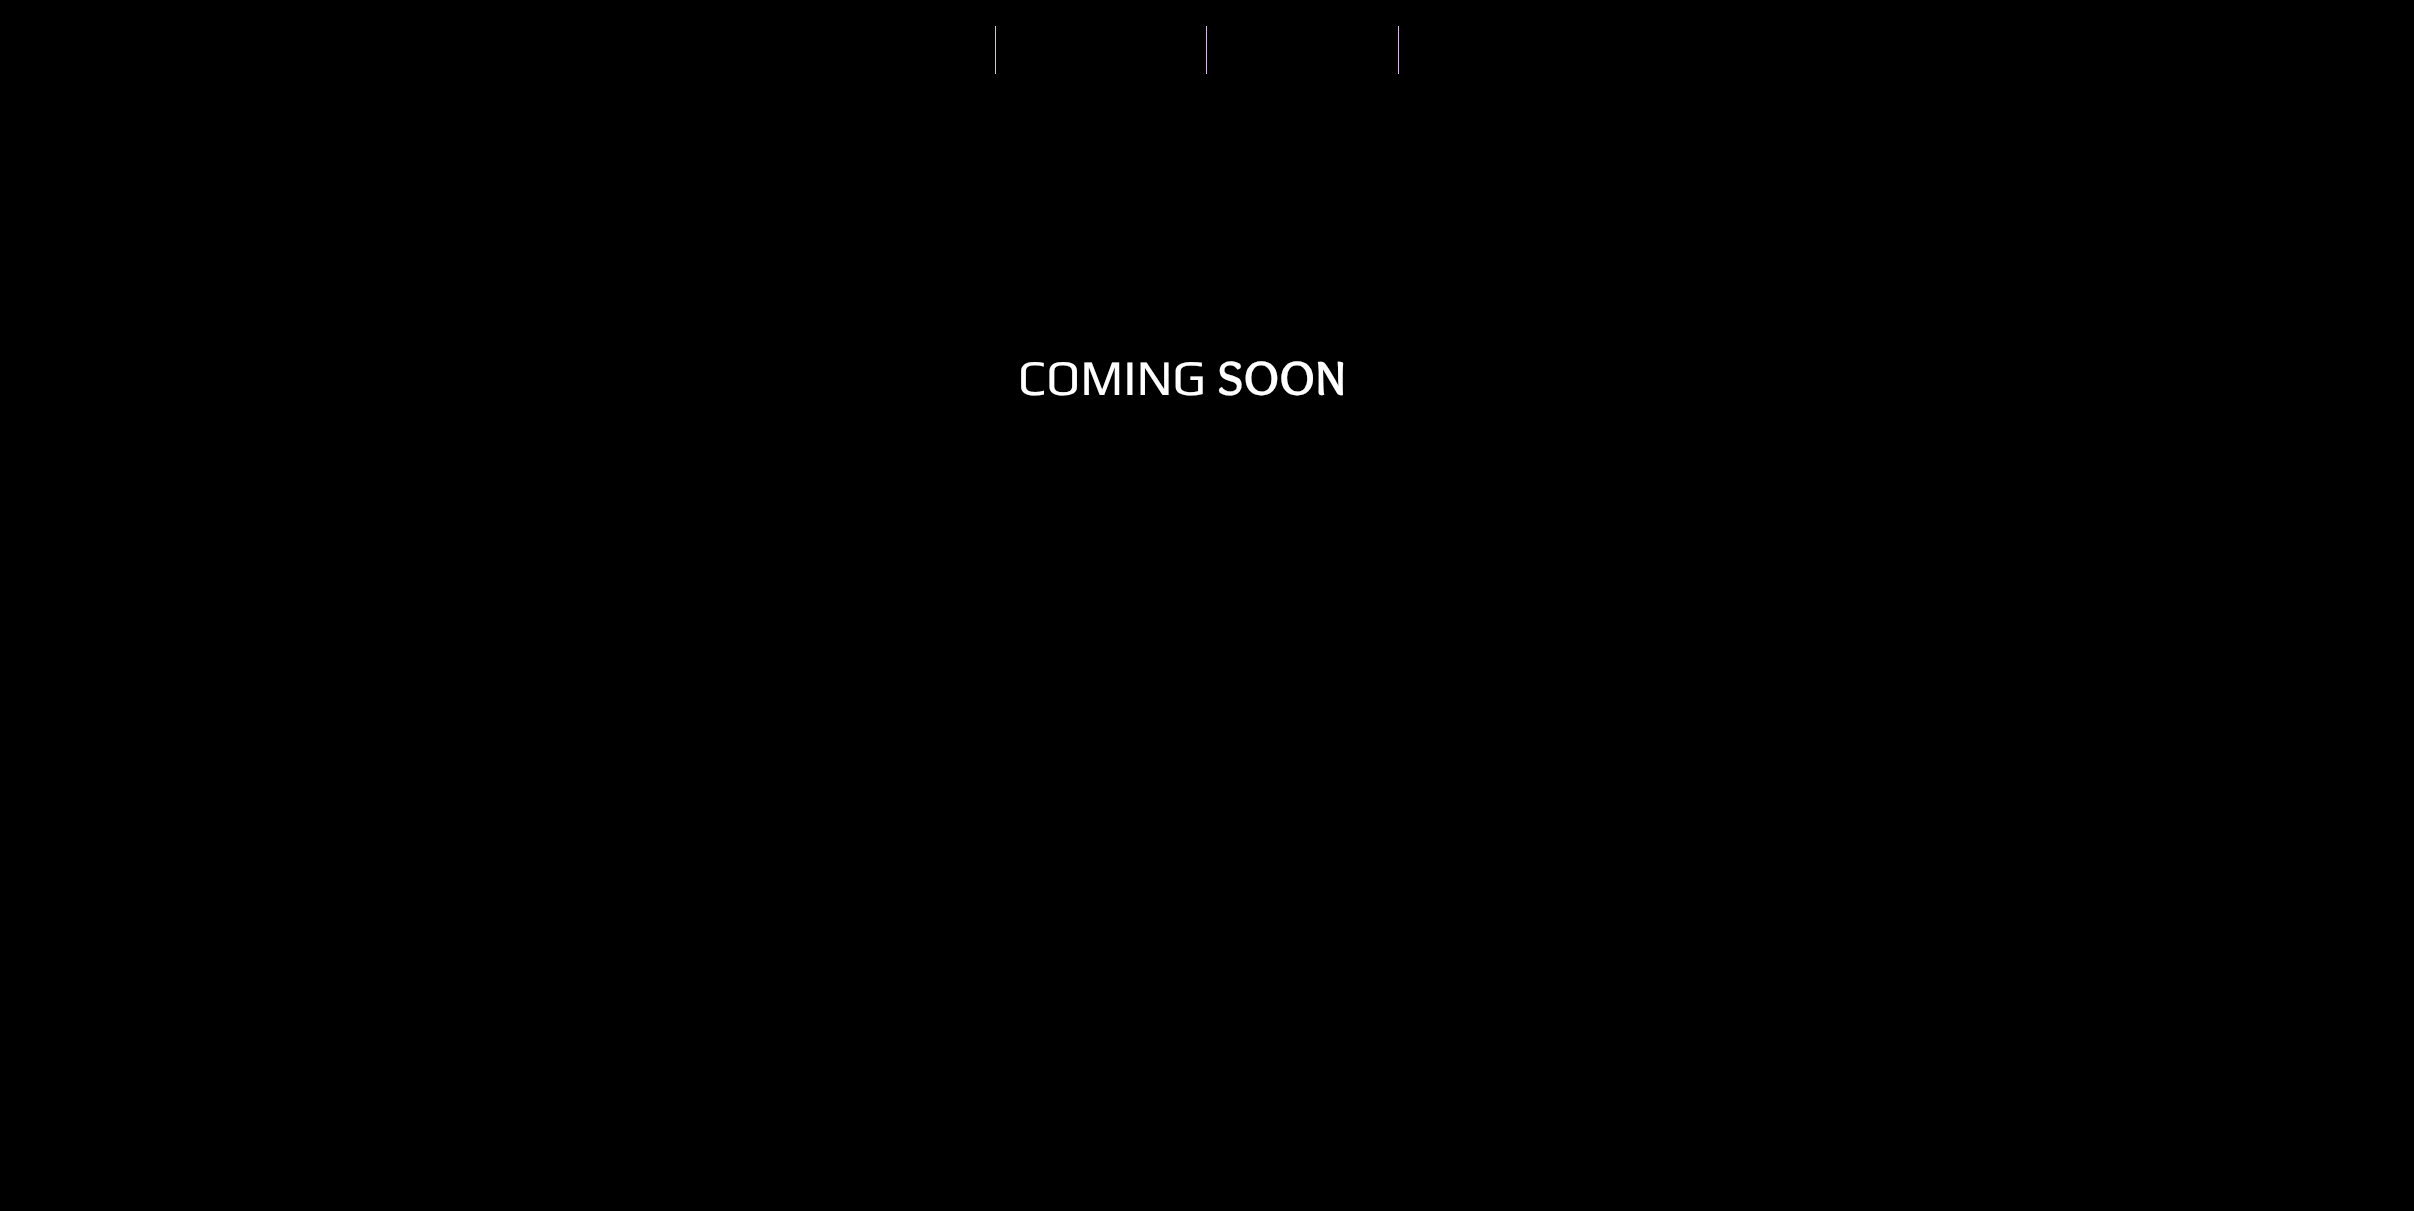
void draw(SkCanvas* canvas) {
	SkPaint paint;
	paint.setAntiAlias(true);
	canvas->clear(0xff000000);
	paint.setColor(0xffd8bde2);
	canvas->drawRect(SkRect::MakeXYWH(995, 26, 1, 48), paint);
	canvas->drawRect(SkRect::MakeXYWH(1206, 26, 1, 48), paint);
	canvas->drawRect(SkRect::MakeXYWH(1398, 26, 1, 48), paint);
	SkFont f1(fontMgr->matchFamilyStyle("Play", SkFontStyle::Normal()), 50);
	f1.setSubpixel(true);
	paint.setColor(0xffffffff);
	canvas->drawString("COMING", 1018, 395, f1, paint);
	SkFont f2(fontMgr->matchFamilyStyle("Overlock", SkFontStyle::Bold()), 50);
	f2.setSubpixel(true);
	canvas->drawString("SOON", 1217, 395, f2, paint);
}
